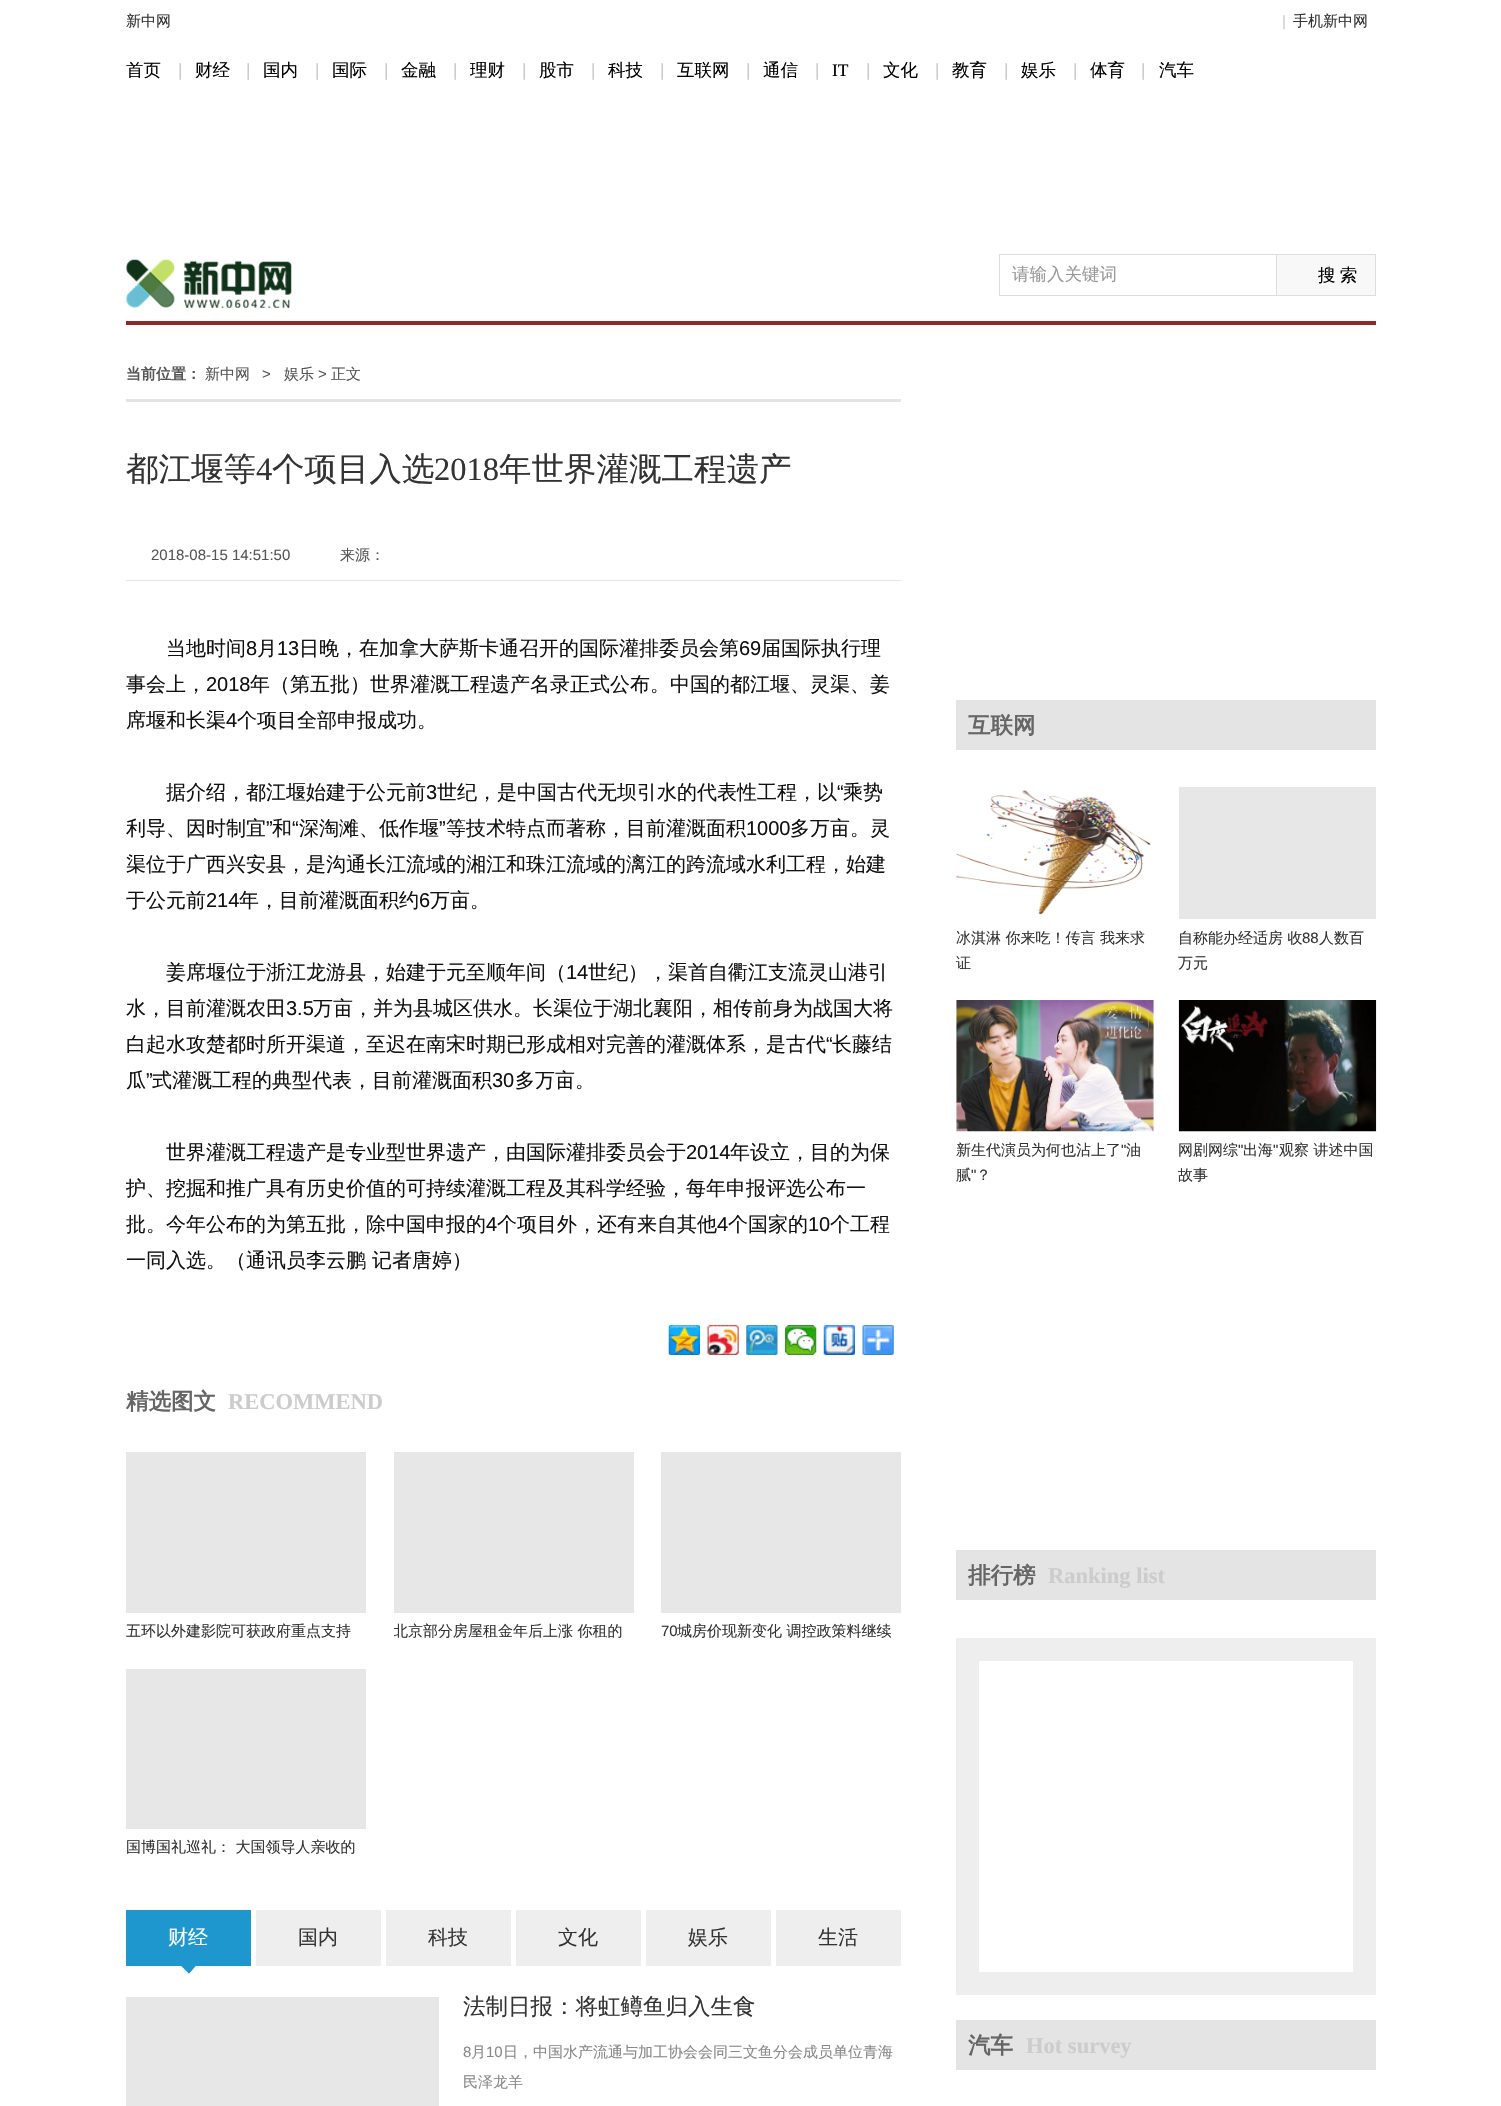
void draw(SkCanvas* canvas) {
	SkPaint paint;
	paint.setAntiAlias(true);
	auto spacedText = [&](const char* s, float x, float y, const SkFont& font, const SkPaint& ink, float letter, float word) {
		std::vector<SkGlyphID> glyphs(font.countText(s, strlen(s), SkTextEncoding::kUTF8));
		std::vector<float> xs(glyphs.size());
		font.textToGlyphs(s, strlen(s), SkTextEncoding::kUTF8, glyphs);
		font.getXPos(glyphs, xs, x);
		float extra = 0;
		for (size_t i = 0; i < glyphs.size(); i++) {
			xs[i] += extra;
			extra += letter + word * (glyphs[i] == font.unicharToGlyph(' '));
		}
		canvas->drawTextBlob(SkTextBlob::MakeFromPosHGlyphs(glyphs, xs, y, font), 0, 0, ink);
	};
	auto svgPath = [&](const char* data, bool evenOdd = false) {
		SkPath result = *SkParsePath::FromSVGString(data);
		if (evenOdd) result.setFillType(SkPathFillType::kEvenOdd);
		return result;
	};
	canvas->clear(0xffffffff);
	SkFont f1(fontMgr->matchFamilyStyle("WenQuanYi Zen Hei", SkFontStyle(500, SkFontStyle::kNormal_Width, SkFontStyle::kUpright_Slant)), 15);
	f1.setSubpixel(true);
	paint.setColor(0xff333333);
	canvas->drawString("新中网", 126, 26, f1, paint);
	SkFont f2(fontMgr->matchFamilyStyle("Liberation Sans", SkFontStyle::Normal()), 15);
	f2.setSubpixel(true);
	paint.setColor(0xffcccccc);
	canvas->drawString("|", 1282, 26, f2, paint);
	paint.setColor(0xff333333);
	canvas->drawString("手机新中网", 1293, 26, f1, paint);
	SkFont f3(fontMgr->matchFamilyStyle("WenQuanYi Zen Hei", SkFontStyle(500, SkFontStyle::kNormal_Width, SkFontStyle::kUpright_Slant)), 17.5);
	f3.setSubpixel(true);
	paint.setColor(0xff000000);
	canvas->drawString("首页", 126, 76, f3, paint);
	SkFont f4(fontMgr->matchFamilyStyle("Liberation Sans", SkFontStyle::Normal()), 17.5);
	f4.setSubpixel(true);
	paint.setColor(0xffcccccc);
	canvas->drawString("|", 178, 76, f4, paint);
	paint.setColor(0xff000000);
	canvas->drawString("财经", 195, 76, f3, paint);
	paint.setColor(0xffcccccc);
	canvas->drawString("|", 246, 76, f4, paint);
	paint.setColor(0xff000000);
	canvas->drawString("国内", 263, 76, f3, paint);
	paint.setColor(0xffcccccc);
	canvas->drawString("|", 315, 76, f4, paint);
	paint.setColor(0xff000000);
	canvas->drawString("国际", 332, 76, f3, paint);
	paint.setColor(0xffcccccc);
	canvas->drawString("|", 384, 76, f4, paint);
	paint.setColor(0xff000000);
	canvas->drawString("金融", 401, 76, f3, paint);
	paint.setColor(0xffcccccc);
	canvas->drawString("|", 453, 76, f4, paint);
	paint.setColor(0xff000000);
	canvas->drawString("理财", 470, 76, f3, paint);
	paint.setColor(0xffcccccc);
	canvas->drawString("|", 522, 76, f4, paint);
	paint.setColor(0xff000000);
	canvas->drawString("股市", 539, 76, f3, paint);
	paint.setColor(0xffcccccc);
	canvas->drawString("|", 591, 76, f4, paint);
	paint.setColor(0xff000000);
	canvas->drawString("科技", 608, 76, f3, paint);
	paint.setColor(0xffcccccc);
	canvas->drawString("|", 660, 76, f4, paint);
	paint.setColor(0xff000000);
	canvas->drawString("互联网", 677, 76, f3, paint);
	paint.setColor(0xffcccccc);
	canvas->drawString("|", 746, 76, f4, paint);
	paint.setColor(0xff000000);
	canvas->drawString("通信", 763, 76, f3, paint);
	paint.setColor(0xffcccccc);
	canvas->drawString("|", 815, 76, f4, paint);
	SkFont f5(fontMgr->matchFamilyStyle("Liberation Serif", SkFontStyle::Normal()), 17.5);
	f5.setSubpixel(true);
	paint.setColor(0xff000000);
	canvas->drawString("IT", 832, 76, f5, paint);
	paint.setColor(0xffcccccc);
	canvas->drawString("|", 866, 76, f4, paint);
	paint.setColor(0xff000000);
	canvas->drawString("文化", 883, 76, f3, paint);
	paint.setColor(0xffcccccc);
	canvas->drawString("|", 935, 76, f4, paint);
	paint.setColor(0xff000000);
	canvas->drawString("教育", 952, 76, f3, paint);
	paint.setColor(0xffcccccc);
	canvas->drawString("|", 1004, 76, f4, paint);
	paint.setColor(0xff000000);
	canvas->drawString("娱乐", 1021, 76, f3, paint);
	paint.setColor(0xffcccccc);
	canvas->drawString("|", 1073, 76, f4, paint);
	paint.setColor(0xff000000);
	canvas->drawString("体育", 1090, 76, f3, paint);
	paint.setColor(0xffcccccc);
	canvas->drawString("|", 1141, 76, f4, paint);
	paint.setColor(0xff000000);
	canvas->drawString("汽车", 1159, 76, f3, paint);
	paint.setColor(0xff8f2827);
	canvas->drawRect(SkRect::MakeXYWH(126, 321, 1250, 4), paint);
	canvas->drawImageRect(SkImages::DeferredFromEncodedData(SkData::MakeFromFileName("img1.png")), SkRect::MakeXYWH(126, 259, 166, 49), SkSamplingOptions());
	paint.setStroke(true);
	paint.setStrokeWidth(1);
	paint.setColor(0xffdddddd);
	canvas->drawRect(SkRect::MakeXYWH(999.5, 254.5, 376, 41), paint);
	paint.setStroke(false);
	paint.setColor(0xff999999);
	canvas->drawString("请输入关键词", 1012, 280, f3, paint);
	paint.setColor(0xfff8f8f8);
	canvas->drawRect(SkRect::MakeXYWH(1277, 255, 98, 40), paint);
	paint.setColor(0xffdddddd);
	canvas->drawRect(SkRect::MakeXYWH(1276, 255, 1, 40), paint);
	paint.setColor(0xff000000);
	spacedText("搜 索", 1318, 281, f3, paint, 0, -1);
	paint.setColor(0xffe4e4e4);
	canvas->drawRect(SkRect::MakeXYWH(126, 399, 775, 3), paint);
	SkFont f6(fontMgr->matchFamilyStyle("WenQuanYi Zen Hei", SkFontStyle::Bold()), 15);
	f6.setSubpixel(true);
	paint.setColor(0xff555555);
	canvas->drawString("当前位置：", 126, 379, f6, paint);
	canvas->drawString("新中网", 205, 379, f1, paint);
	canvas->drawString(">", 262, 379, f2, paint);
	canvas->drawString("娱乐", 284, 379, f1, paint);
	canvas->drawString(">", 318, 379, f2, paint);
	canvas->drawString("正文", 331, 379, f1, paint);
	SkFont f7(fontMgr->matchFamilyStyle("WenQuanYi Zen Hei", SkFontStyle(500, SkFontStyle::kNormal_Width, SkFontStyle::kUpright_Slant)), 32.5);
	f7.setSubpixel(true);
	paint.setColor(0xff333333);
	canvas->drawString("都江堰等", 126, 480, f7, paint);
	SkFont f8(fontMgr->matchFamilyStyle("Liberation Serif", SkFontStyle::Normal()), 32.5);
	f8.setSubpixel(true);
	canvas->drawString("4", 256, 480, f8, paint);
	canvas->drawString("个项目入选", 272, 480, f7, paint);
	canvas->drawString("2018", 434, 480, f8, paint);
	canvas->drawString("年世界灌溉工程遗产", 499, 480, f7, paint);
	paint.setColor(0xffe5e5e5);
	canvas->drawRect(SkRect::MakeXYWH(126, 580, 775, 1), paint);
	paint.setColor(0xff555555);
	canvas->drawString("2018-08-15 14:51:50", 151, 560, f2, paint);
	canvas->drawString("来源：", 340, 560, f1, paint);
	SkFont f9(fontMgr->matchFamilyStyle("WenQuanYi Zen Hei", SkFontStyle(500, SkFontStyle::kNormal_Width, SkFontStyle::kUpright_Slant)), 20);
	f9.setSubpixel(true);
	paint.setColor(0xff111111);
	canvas->drawString("当地时间", 166, 655, f9, paint);
	SkFont f10(fontMgr->matchFamilyStyle("Liberation Sans", SkFontStyle::Normal()), 20);
	f10.setSubpixel(true);
	canvas->drawString("8", 246, 655, f10, paint);
	canvas->drawString("月", 257, 655, f9, paint);
	canvas->drawString("13", 277, 655, f10, paint);
	canvas->drawString("日晚，在加拿大萨斯卡通召开的国际灌排委员会第", 299, 655, f9, paint);
	canvas->drawString("69", 739, 655, f10, paint);
	canvas->drawString("届国际执行理", 761, 655, f9, paint);
	canvas->drawString("事会上，", 126, 691, f9, paint);
	canvas->drawString("2018", 206, 691, f10, paint);
	canvas->drawString("年（第五批）世界灌溉工程遗产名录正式公布。中国的都江堰、灵渠、姜", 250, 691, f9, paint);
	canvas->drawString("席堰和长渠", 126, 727, f9, paint);
	canvas->drawString("4", 226, 727, f10, paint);
	canvas->drawString("个项目全部申报成功。", 237, 727, f9, paint);
	canvas->drawString("据介绍，都江堰始建于公元前", 166, 799, f9, paint);
	canvas->drawString("3", 426, 799, f10, paint);
	canvas->drawString("世纪，是中国古代无坝引水的代表性工程，以", 437, 799, f9, paint);
	canvas->drawString("“", 837, 799, f10, paint);
	canvas->drawString("乘势", 843, 799, f9, paint);
	canvas->drawString("利导、因时制宜", 126, 835, f9, paint);
	canvas->drawString("”", 266, 835, f10, paint);
	canvas->drawString("和", 272, 835, f9, paint);
	canvas->drawString("“", 292, 835, f10, paint);
	canvas->drawString("深淘滩、低作堰", 299, 835, f9, paint);
	canvas->drawString("”", 439, 835, f10, paint);
	canvas->drawString("等技术特点而著称，目前灌溉面积", 446, 835, f9, paint);
	canvas->drawString("1000", 746, 835, f10, paint);
	canvas->drawString("多万亩。灵", 790, 835, f9, paint);
	canvas->drawString("渠位于广西兴安县，是沟通长江流域的湘江和珠江流域的漓江的跨流域水利工程，始建", 126, 871, f9, paint);
	canvas->drawString("于公元前", 126, 907, f9, paint);
	canvas->drawString("214", 206, 907, f10, paint);
	canvas->drawString("年，目前灌溉面积约", 239, 907, f9, paint);
	canvas->drawString("6", 419, 907, f10, paint);
	canvas->drawString("万亩。", 430, 907, f9, paint);
	canvas->drawString("姜席堰位于浙江龙游县，始建于元至顺年间（", 166, 979, f9, paint);
	canvas->drawString("14", 566, 979, f10, paint);
	canvas->drawString("世纪），渠首自衢江支流灵山港引", 588, 979, f9, paint);
	canvas->drawString("水，目前灌溉农田", 126, 1015, f9, paint);
	canvas->drawString("3.5", 286, 1015, f10, paint);
	canvas->drawString("万亩，并为县城区供水。长渠位于湖北襄阳，相传前身为战国大将", 313, 1015, f9, paint);
	canvas->drawString("白起水攻楚都时所开渠道，至迟在南宋时期已形成相对完善的灌溉体系，是古代", 126, 1051, f9, paint);
	canvas->drawString("“", 826, 1051, f10, paint);
	canvas->drawString("长藤结", 832, 1051, f9, paint);
	canvas->drawString("瓜", 126, 1087, f9, paint);
	canvas->drawString("”", 146, 1087, f10, paint);
	canvas->drawString("式灌溉工程的典型代表，目前灌溉面积", 152, 1087, f9, paint);
	canvas->drawString("30", 492, 1087, f10, paint);
	canvas->drawString("多万亩。", 515, 1087, f9, paint);
	canvas->drawString("世界灌溉工程遗产是专业型世界遗产，由国际灌排委员会于", 166, 1159, f9, paint);
	canvas->drawString("2014", 686, 1159, f10, paint);
	canvas->drawString("年设立，目的为保", 730, 1159, f9, paint);
	canvas->drawString("护、挖掘和推广具有历史价值的可持续灌溉工程及其科学经验，每年申报评选公布一", 126, 1195, f9, paint);
	canvas->drawString("批。今年公布的为第五批，除中国申报的", 126, 1231, f9, paint);
	canvas->drawString("4", 486, 1231, f10, paint);
	canvas->drawString("个项目外，还有来自其他", 497, 1231, f9, paint);
	canvas->drawString("4", 717, 1231, f10, paint);
	canvas->drawString("个国家的", 728, 1231, f9, paint);
	canvas->drawString("10", 808, 1231, f10, paint);
	canvas->drawString("个工程", 830, 1231, f9, paint);
	canvas->drawString("一同入选。（通讯员李云鹏 记者唐婷）", 126, 1267, f9, paint);
	canvas->drawImageRect(SkImages::DeferredFromEncodedData(SkData::MakeFromFileName("img2.png")), SkRect::MakeXYWH(668, 1325, 32, 30), SkSamplingOptions());
	canvas->drawImageRect(SkImages::DeferredFromEncodedData(SkData::MakeFromFileName("img3.png")), SkRect::MakeXYWH(707, 1325, 32, 30), SkSamplingOptions());
	canvas->drawImageRect(SkImages::DeferredFromEncodedData(SkData::MakeFromFileName("img4.png")), SkRect::MakeXYWH(746, 1325, 32, 30), SkSamplingOptions());
	canvas->drawImageRect(SkImages::DeferredFromEncodedData(SkData::MakeFromFileName("img5.png")), SkRect::MakeXYWH(785, 1325, 32, 30), SkSamplingOptions());
	canvas->drawImageRect(SkImages::DeferredFromEncodedData(SkData::MakeFromFileName("img6.png")), SkRect::MakeXYWH(823, 1325, 32, 30), SkSamplingOptions());
	canvas->drawImageRect(SkImages::DeferredFromEncodedData(SkData::MakeFromFileName("img7.png")), SkRect::MakeXYWH(862, 1325, 32, 30), SkSamplingOptions());
	SkFont f11(fontMgr->matchFamilyStyle("WenQuanYi Zen Hei", SkFontStyle::Bold()), 22.5);
	f11.setSubpixel(true);
	paint.setColor(0xff666666);
	canvas->drawString("精选图文", 126, 1409, f11, paint);
	SkFont f12(fontMgr->matchFamilyStyle("Liberation Serif", SkFontStyle::Bold()), 22.5);
	f12.setSubpixel(true);
	paint.setColor(0xffcccccc);
	canvas->drawString("RECOMMEND", 228, 1409, f12, paint);
	paint.setColor(0xffe7e7e7);
	canvas->drawRect(SkRect::MakeXYWH(126, 1452, 240, 161), paint);
	paint.setColor(0xff333333);
	canvas->drawString("五环以外建影院可获政府重点支持", 126, 1636, f1, paint);
	paint.setColor(0xffe7e7e7);
	canvas->drawRect(SkRect::MakeXYWH(394, 1452, 240, 161), paint);
	canvas->save();
	canvas->clipRect(SkRect::MakeXYWH(394, 1619, 240, 25));
	paint.setColor(0xff333333);
	canvas->drawString("北京部分房屋租金年后上涨 你租的", 393, 1636, f1, paint);
	canvas->restore();
	paint.setColor(0xffe7e7e7);
	canvas->drawRect(SkRect::MakeXYWH(661, 1452, 240, 161), paint);
	paint.setColor(0xff333333);
	canvas->drawString("70", 661, 1636, f2, paint);
	canvas->drawString("城房价现新变化 调控政策料继续", 677, 1636, f1, paint);
	paint.setColor(0xffe7e7e7);
	canvas->drawRect(SkRect::MakeXYWH(126, 1669, 240, 160), paint);
	paint.setColor(0xff333333);
	canvas->drawString("国博国礼巡礼： 大国领导人亲收的", 126, 1852, f1, paint);
	paint.setColor(0xff1e97ce);
	canvas->drawRect(SkRect::MakeXYWH(126, 1910, 125, 56), paint);
	paint.setColor(0xffffffff);
	canvas->drawString("财经", 168, 1944, f9, paint);
	paint.setColor(0xff1e97ce);
	canvas->drawPath(svgPath("M181 1966H196L189 1974Z"), paint);
	paint.setColor(0xffffffff);
	canvas->drawPath(svgPath("M196 1966V1981L189 1974ZM181 1981V1966L189 1974Z"), paint);
	paint.setColor(0xffeeeeee);
	canvas->drawRect(SkRect::MakeXYWH(256, 1910, 125, 56), paint);
	paint.setColor(0xff333333);
	canvas->drawString("国内", 298, 1944, f9, paint);
	paint.setColor(0xffeeeeee);
	canvas->drawRect(SkRect::MakeXYWH(386, 1910, 125, 56), paint);
	paint.setColor(0xff333333);
	canvas->drawString("科技", 428, 1944, f9, paint);
	paint.setColor(0xffeeeeee);
	canvas->drawRect(SkRect::MakeXYWH(516, 1910, 125, 56), paint);
	paint.setColor(0xff333333);
	canvas->drawString("文化", 558, 1944, f9, paint);
	paint.setColor(0xffeeeeee);
	canvas->drawRect(SkRect::MakeXYWH(646, 1910, 125, 56), paint);
	paint.setColor(0xff333333);
	canvas->drawString("娱乐", 688, 1944, f9, paint);
	paint.setColor(0xffeeeeee);
	canvas->drawRect(SkRect::MakeXYWH(776, 1910, 125, 56), paint);
	paint.setColor(0xff333333);
	canvas->drawString("生活", 818, 1944, f9, paint);
	paint.setColor(0xffe7e7e7);
	canvas->drawRect(SkRect::MakeXYWH(126, 1997, 313, 109), paint);
	SkFont f13(fontMgr->matchFamilyStyle("WenQuanYi Zen Hei", SkFontStyle(500, SkFontStyle::kNormal_Width, SkFontStyle::kUpright_Slant)), 22.5);
	f13.setSubpixel(true);
	paint.setColor(0xff333333);
	canvas->drawString("法制日报：将虹鳟鱼归入生食", 463, 2014, f13, paint);
	paint.setColor(0xff888888);
	canvas->drawString("8", 463, 2057, f2, paint);
	canvas->drawString("月", 471, 2057, f1, paint);
	canvas->drawString("10", 486, 2057, f2, paint);
	canvas->drawString("日，中国水产流通与加工协会会同三文鱼分会成员单位青海", 503, 2057, f1, paint);
	canvas->drawString("民泽龙羊", 463, 2087, f1, paint);
	paint.setColor(0xffe4e4e4);
	canvas->drawRect(SkRect::MakeXYWH(956, 700, 420, 50), paint);
	paint.setColor(0xff666666);
	canvas->drawString("互联网", 968, 733, f11, paint);
	canvas->drawImageRect(SkImages::DeferredFromEncodedData(SkData::MakeFromFileName("img8.png")), SkRect::MakeXYWH(956, 790, 195, 125), SkSamplingOptions());
	paint.setColor(0xff333333);
	canvas->drawString("冰淇淋 你来吃！传言 我来求", 956, 943, f1, paint);
	canvas->drawString("证", 956, 968, f1, paint);
	paint.setColor(0xffe7e7e7);
	canvas->drawRect(SkRect::MakeXYWH(1179, 787, 197, 132), paint);
	paint.setColor(0xff333333);
	canvas->drawString("自称能办经适房 收", 1178, 943, f1, paint);
	canvas->drawString("88", 1302, 943, f2, paint);
	canvas->drawString("人数百", 1319, 943, f1, paint);
	canvas->drawString("万元", 1178, 968, f1, paint);
	canvas->drawImageRect(SkImages::DeferredFromEncodedData(SkData::MakeFromFileName("img9.png")), SkRect::MakeXYWH(956, 1000, 198, 132), SkSamplingOptions());
	canvas->drawString("新生代演员为何也沾上了", 956, 1155, f1, paint);
	canvas->drawString("\"", 1121, 1155, f2, paint);
	canvas->drawString("油", 1126, 1155, f1, paint);
	canvas->drawString("腻", 956, 1180, f1, paint);
	canvas->drawString("\"", 971, 1180, f2, paint);
	canvas->drawString("？", 976, 1180, f1, paint);
	canvas->drawImageRect(SkImages::DeferredFromEncodedData(SkData::MakeFromFileName("img10.png")), SkRect::MakeXYWH(1178, 1000, 199, 132), SkSamplingOptions());
	canvas->drawString("网剧网综", 1178, 1155, f1, paint);
	canvas->drawString("\"", 1238, 1155, f2, paint);
	canvas->drawString("出海", 1243, 1155, f1, paint);
	canvas->drawString("\"", 1273, 1155, f2, paint);
	canvas->drawString("观察 讲述中国", 1279, 1155, f1, paint);
	canvas->drawString("故事", 1178, 1180, f1, paint);
	paint.setColor(0xffe4e4e4);
	canvas->drawRect(SkRect::MakeXYWH(956, 1550, 420, 50), paint);
	paint.setColor(0xff666666);
	canvas->drawString("排行榜", 968, 1583, f11, paint);
	paint.setColor(0xffcccccc);
	canvas->drawString("Ranking list", 1048, 1583, f12, paint);
	paint.setStroke(true);
	paint.setStrokeWidth(23);
	paint.setColor(0xffeeeeee);
	canvas->drawRect(SkRect::MakeXYWH(967.5, 1649.5, 397, 334), paint);
	paint.setStroke(false);
	paint.setColor(0xffe4e4e4);
	canvas->drawRect(SkRect::MakeXYWH(956, 2020, 420, 50), paint);
	paint.setColor(0xff666666);
	canvas->drawString("汽车", 968, 2053, f11, paint);
	paint.setColor(0xffcccccc);
	canvas->drawString("Hot survey", 1026, 2053, f12, paint);
}
